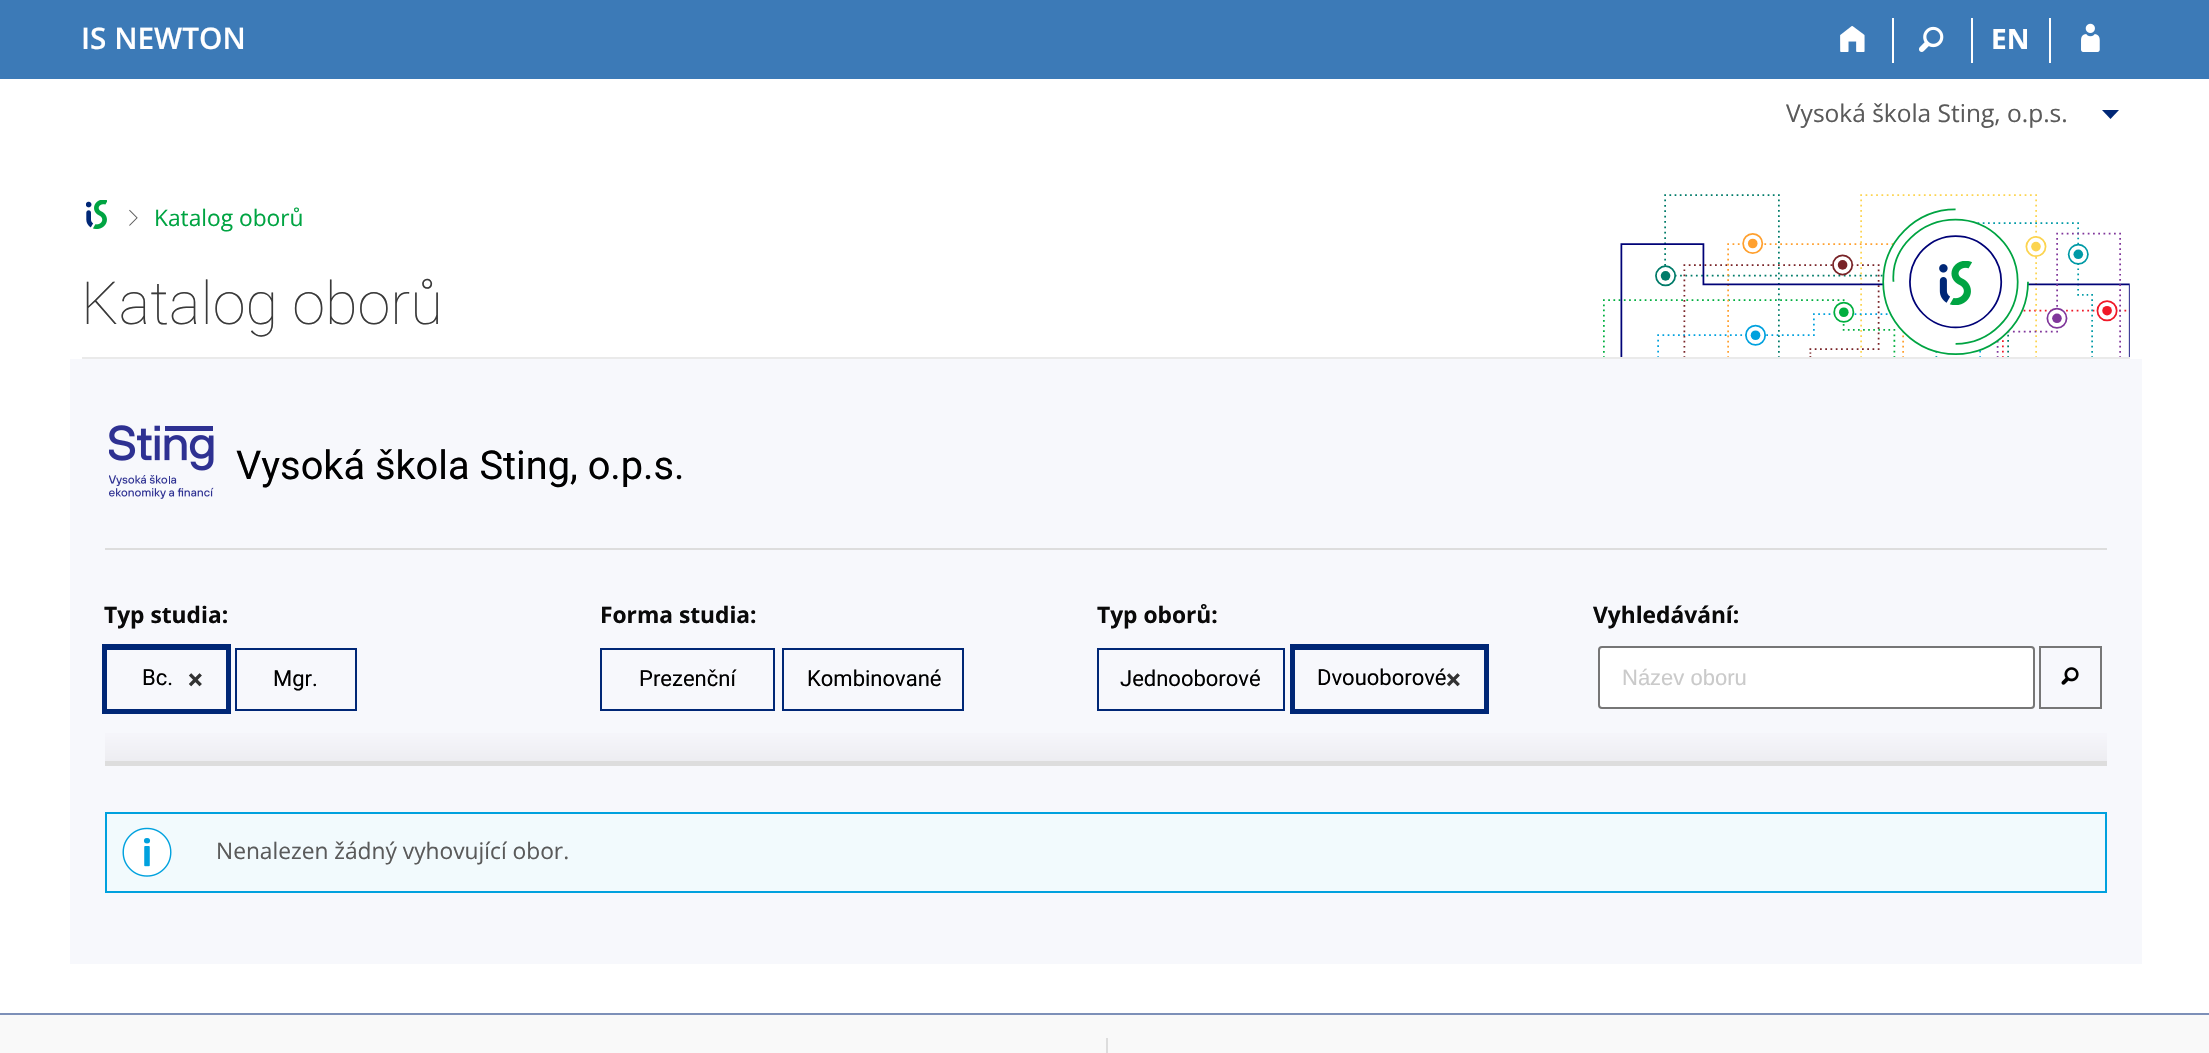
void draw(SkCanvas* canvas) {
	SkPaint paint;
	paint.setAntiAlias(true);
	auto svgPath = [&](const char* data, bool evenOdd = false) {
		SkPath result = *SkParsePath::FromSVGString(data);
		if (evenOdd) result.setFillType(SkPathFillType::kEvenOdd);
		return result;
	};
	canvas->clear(0xffffffff);
	paint.setColor(0xff3c7ab7);
	canvas->drawRect(SkRect::MakeXYWH(0, 0, 2209, 79), paint);
	SkFont f1(fontMgr->matchFamilyStyle("Open Sans", SkFontStyle(600, SkFontStyle::kNormal_Width, SkFontStyle::kUpright_Slant)), 29.75);
	f1.setSubpixel(true);
	paint.setColor(0xffffffff);
	canvas->drawString("IS NEWTON", 81, 49, f1, paint);
	canvas->drawRect(SkRect::MakeXYWH(1892, 18, 2, 45), paint);
	canvas->drawImageRect(SkImages::DeferredFromEncodedData(SkData::MakeFromFileName("img1.png")), SkRect::MakeXYWH(1840, 26, 25, 26), SkSamplingOptions());
	canvas->drawRect(SkRect::MakeXYWH(1971, 18, 2, 45), paint);
	canvas->drawImageRect(SkImages::DeferredFromEncodedData(SkData::MakeFromFileName("img2.png")), SkRect::MakeXYWH(1919, 26, 25, 26), SkSamplingOptions());
	canvas->drawRect(SkRect::MakeXYWH(2049, 18, 2, 45), paint);
	SkFont f2(fontMgr->matchFamilyStyle("Open Sans", SkFontStyle::Bold()), 28);
	f2.setSubpixel(true);
	canvas->drawString("EN", 1991, 49, f2, paint);
	canvas->drawImageRect(SkImages::DeferredFromEncodedData(SkData::MakeFromFileName("img3.png")), SkRect::MakeXYWH(2081, 23, 19, 29), SkSamplingOptions());
	SkFont f3(fontMgr->matchFamilyStyle("Open Sans", SkFontStyle::Normal()), 24.5);
	f3.setSubpixel(true);
	paint.setColor(0xff5a5a5a);
	canvas->drawString("Vysoká škola Sting, o.p.s.", 1786, 122, f3, paint);
	paint.setColor(0xff002776);
	canvas->drawPath(svgPath("M2102 110H2119L2110.5 119Z"), paint);
	canvas->drawImageRect(SkImages::DeferredFromEncodedData(SkData::MakeFromFileName("img4.png")), SkRect::MakeXYWH(86, 200, 21, 29), SkSamplingOptions());
	canvas->drawImageRect(SkImages::DeferredFromEncodedData(SkData::MakeFromFileName("img5.png")), SkRect::MakeXYWH(129, 209, 9, 17), SkSamplingOptions());
	SkFont f4(fontMgr->matchFamilyStyle("Open Sans", SkFontStyle::Normal()), 22.75);
	f4.setSubpixel(true);
	paint.setColor(0xff00a442);
	canvas->drawString("Katalog oborů", 154, 226, f4, paint);
	SkFont f5(fontMgr->matchFamilyStyle("Roboto", SkFontStyle(100, SkFontStyle::kNormal_Width, SkFontStyle::kUpright_Slant)), 59.5);
	f5.setSubpixel(true);
	paint.setColor(0xff3a3a3a);
	canvas->drawString("Katalog oborů", 81, 324, f5, paint);
	canvas->drawImageRect(SkImages::DeferredFromEncodedData(SkData::MakeFromFileName("img6.png")), SkRect::MakeXYWH(1603, 194, 527, 163), SkSamplingOptions());
	canvas->drawImageRect(SkImages::DeferredFromEncodedData(SkData::MakeFromFileName("img7.png")), SkRect::MakeXYWH(1939, 261, 33, 44), SkSamplingOptions());
	paint.setColor(0xffeaeaea);
	canvas->drawRect(SkRect::MakeXYWH(82, 357, 2048, 2), paint);
	paint.setColor(0xfff7f8fc);
	canvas->drawRect(SkRect::MakeXYWH(70, 359, 2072, 605), paint);
	canvas->drawImageRect(SkImages::DeferredFromEncodedData(SkData::MakeFromFileName("img8.png")), SkRect::MakeXYWH(109, 425, 105, 74), SkSamplingOptions());
	SkFont f6(fontMgr->matchFamilyStyle("Roboto", SkFontStyle::Normal()), 39.75);
	f6.setSubpixel(true);
	paint.setColor(0xff000000);
	canvas->drawString("Vysoká škola Sting, o.p.s.", 236, 479, f6, paint);
	{
		const SkColor colors[] = {0xffededf1, 0xfff8f8fd};
		const float stops[] = {0, 0.17};
		const SkPoint ends[] = {{1106, 761}, {1106, 550}};
		paint.setShader(SkGradientShader::MakeLinear(ends, colors, stops, 2, SkTileMode::kClamp));
		paint.setAlpha(255);
	}
	canvas->drawRect(SkRect::MakeXYWH(105, 733, 2002, 28), paint);
	paint.setShader(nullptr);
	paint.setColor(0xffdddddd);
	canvas->drawRect(SkRect::MakeXYWH(105, 548, 2002, 2), paint);
	canvas->drawRect(SkRect::MakeXYWH(105, 761, 2002, 5), paint);
	SkFont f7(fontMgr->matchFamilyStyle("Open Sans", SkFontStyle::Bold()), 22.75);
	f7.setSubpixel(true);
	paint.setColor(0xff0a0a0a);
	canvas->drawString("Typ studia:", 104, 623, f7, paint);
	paint.setStroke(true);
	paint.setStrokeWidth(2);
	paint.setColor(0xff002776);
	canvas->drawRect(SkRect::MakeXYWH(106, 649, 121, 61), paint);
	paint.setStrokeWidth(4);
	canvas->drawRect(SkRect::MakeXYWH(104, 646, 125, 66), paint);
	SkFont f8(fontMgr->matchFamilyStyle("Roboto", SkFontStyle::Normal()), 22);
	f8.setSubpixel(true);
	paint.setStroke(false);
	paint.setColor(0xff000000);
	canvas->drawString("Bc.", 142, 685, f8, paint);
	SkFont f9(fontMgr->matchFamilyStyle("Roboto", SkFontStyle::Bold()), 28);
	f9.setSubpixel(true);
	paint.setColor(0xff333333);
	canvas->drawString("×", 188, 689, f9, paint);
	paint.setStroke(true);
	paint.setStrokeWidth(2);
	paint.setColor(0xff002776);
	canvas->drawRect(SkRect::MakeXYWH(236, 649, 120, 61), paint);
	paint.setStroke(false);
	paint.setColor(0xff000000);
	canvas->drawString("Mgr.", 273, 686, f8, paint);
	paint.setColor(0xff0a0a0a);
	canvas->drawString("Forma studia:", 600, 623, f7, paint);
	paint.setStroke(true);
	paint.setColor(0xff002776);
	canvas->drawRect(SkRect::MakeXYWH(601, 649, 173, 61), paint);
	paint.setStroke(false);
	paint.setColor(0xff000000);
	canvas->drawString("Prezenční", 639, 686, f8, paint);
	paint.setStroke(true);
	paint.setColor(0xff002776);
	canvas->drawRect(SkRect::MakeXYWH(783, 649, 180, 61), paint);
	paint.setStroke(false);
	paint.setColor(0xff000000);
	canvas->drawString("Kombinované", 807, 686, f8, paint);
	paint.setColor(0xff0a0a0a);
	canvas->drawString("Typ oborů:", 1097, 623, f7, paint);
	paint.setStroke(true);
	paint.setColor(0xff002776);
	canvas->drawRect(SkRect::MakeXYWH(1098, 649, 186, 61), paint);
	paint.setStroke(false);
	paint.setColor(0xff000000);
	canvas->drawString("Jednooborové", 1120, 686, f8, paint);
	paint.setStroke(true);
	paint.setColor(0xff002776);
	canvas->drawRect(SkRect::MakeXYWH(1294, 649, 191, 61), paint);
	paint.setStrokeWidth(4);
	canvas->drawRect(SkRect::MakeXYWH(1292, 646, 195, 66), paint);
	paint.setStroke(false);
	paint.setColor(0xff000000);
	canvas->drawString("Dvouoborové", 1317, 685, f8, paint);
	paint.setColor(0xff333333);
	canvas->drawString("×", 1446, 689, f9, paint);
	paint.setColor(0xff0a0a0a);
	canvas->drawString("Vyhledávání:", 1593, 623, f7, paint);
	paint.setColor(0xffffffff);
	canvas->drawRoundRect(SkRect::MakeXYWH(1599, 647, 435, 61), 3, 3, paint);
	paint.setStroke(true);
	paint.setStrokeWidth(2);
	paint.setColor(0xff767676);
	canvas->drawRoundRect(SkRect::MakeXYWH(1599, 647, 435, 61), 3, 3, paint);
	SkFont f10(fontMgr->matchFamilyStyle("Liberation Sans", SkFontStyle::Normal()), 22);
	f10.setSubpixel(true);
	paint.setStroke(false);
	paint.setColor(0xffcacaca);
	canvas->drawString("Název oboru", 1622, 685, f10, paint);
	paint.setStroke(true);
	paint.setColor(0xff777777);
	canvas->drawRect(SkRect::MakeXYWH(2040, 647, 61, 61), paint);
	canvas->drawImageRect(SkImages::DeferredFromEncodedData(SkData::MakeFromFileName("img9.png")), SkRect::MakeXYWH(2061, 667, 18, 18), SkSamplingOptions());
	paint.setStroke(false);
	paint.setColor(0xfff2fafd);
	canvas->drawRect(SkRect::MakeXYWH(106, 813, 2000, 79), paint);
	paint.setStroke(true);
	paint.setColor(0xff00a1de);
	canvas->drawRect(SkRect::MakeXYWH(106, 813, 2000, 79), paint);
	paint.setStroke(false);
	paint.setColor(0xffffffff);
	canvas->drawCircle(147.5, 852.5, 24.5, paint);
	canvas->drawImageRect(SkImages::DeferredFromEncodedData(SkData::MakeFromFileName("img10.png")), SkRect::MakeXYWH(122, 827, 50, 50), SkSamplingOptions());
	paint.setColor(0xff5a5a5a);
	canvas->drawString("Nenalezen žádný vyhovující obor.", 216, 859, f4, paint);
	paint.setColor(0xfff9f9f9);
	canvas->drawRect(SkRect::MakeXYWH(0, 1015, 2209, 38), paint);
	paint.setColor(0xff7d90b8);
	canvas->drawRect(SkRect::MakeXYWH(0, 1013, 2209, 2), paint);
	paint.setColor(0xffdddddd);
	canvas->drawRect(SkRect::MakeXYWH(1106, 1038, 2, 15), paint);
}
